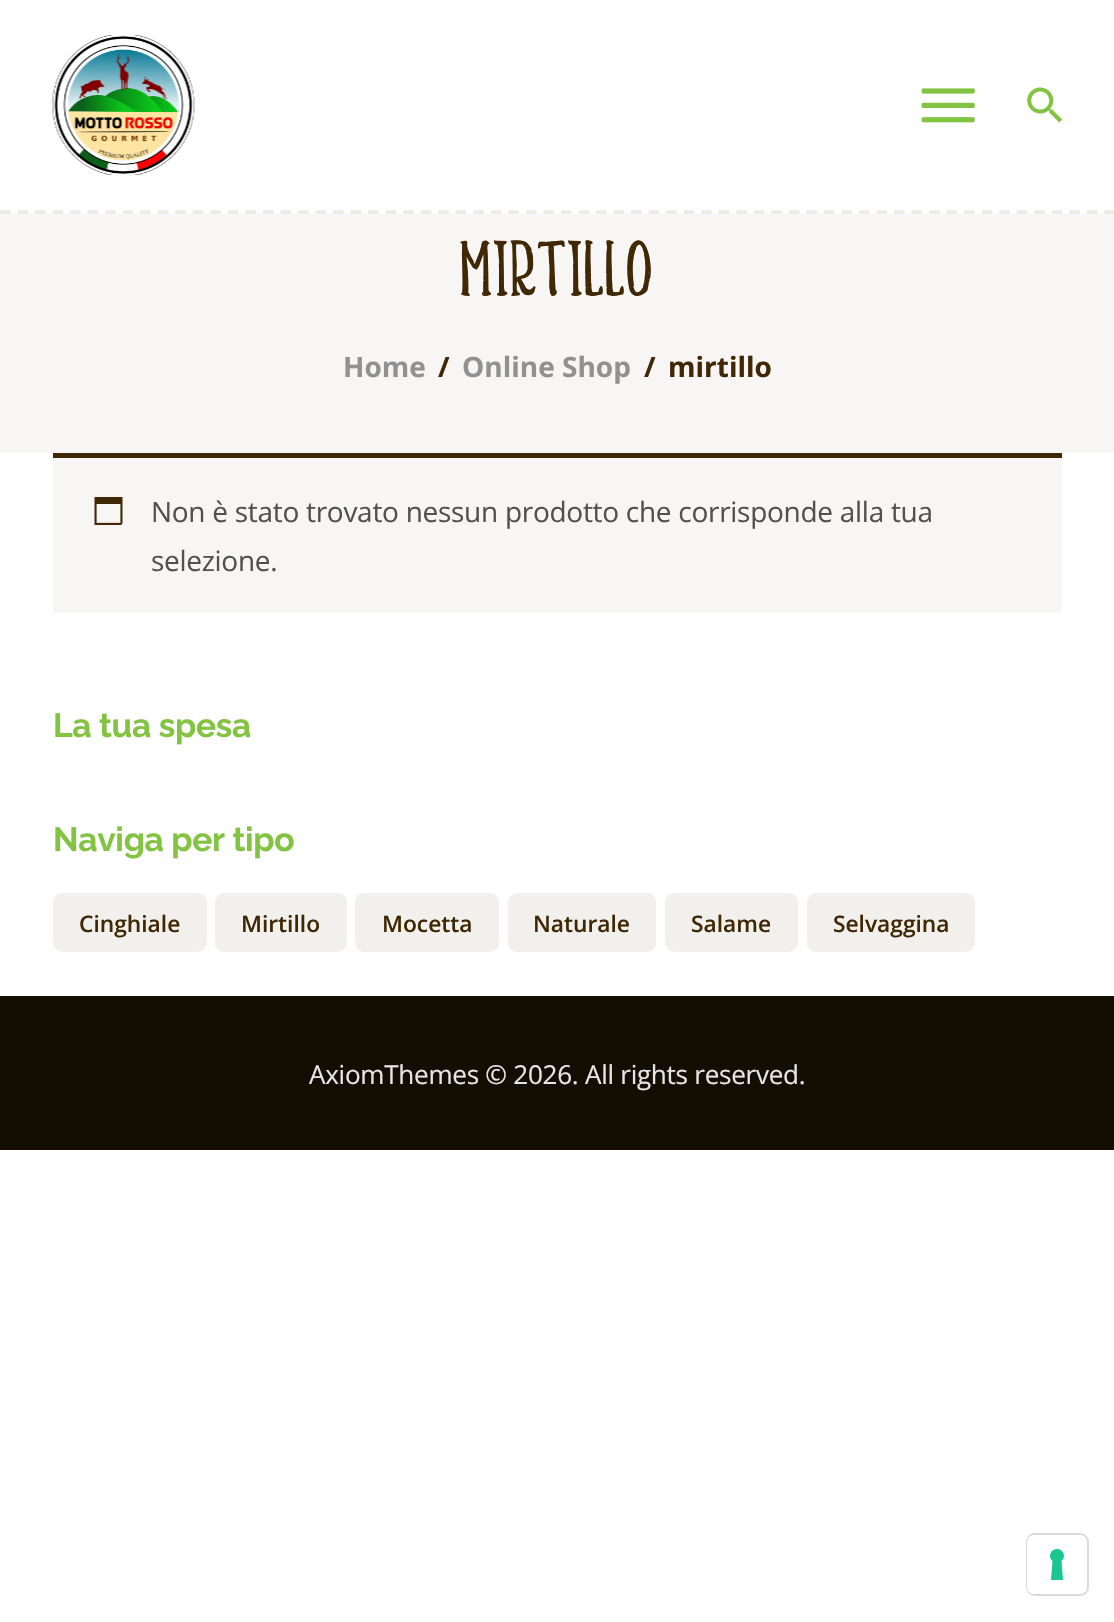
void draw(SkCanvas* canvas) {
	SkPaint paint;
	paint.setAntiAlias(true);
	auto spacedText = [&](const char* s, float x, float y, const SkFont& font, const SkPaint& ink, float letter, float word) {
		std::vector<SkGlyphID> glyphs(font.countText(s, strlen(s), SkTextEncoding::kUTF8));
		std::vector<float> xs(glyphs.size());
		font.textToGlyphs(s, strlen(s), SkTextEncoding::kUTF8, glyphs);
		font.getXPos(glyphs, xs, x);
		float extra = 0;
		for (size_t i = 0; i < glyphs.size(); i++) {
			xs[i] += extra;
			extra += letter + word * (glyphs[i] == font.unicharToGlyph(' '));
		}
		canvas->drawTextBlob(SkTextBlob::MakeFromPosHGlyphs(glyphs, xs, y, font), 0, 0, ink);
	};
	auto svgPath = [&](const char* data, bool evenOdd = false) {
		SkPath result = *SkParsePath::FromSVGString(data);
		if (evenOdd) result.setFillType(SkPathFillType::kEvenOdd);
		return result;
	};
	canvas->clear(0xffffffff);
	paint.setStroke(true);
	paint.setStrokeWidth(3.5);
	paint.setColor(0xffefe9e3);
	paint.setPathEffect(SkDashPathEffect::Make({{10.5f, 7.03f}}, 0));
	canvas->drawPath(svgPath("M-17.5 212H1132"), paint);
	paint.setPathEffect(nullptr);
	canvas->drawImageRect(SkImages::DeferredFromEncodedData(SkData::MakeFromFileName("img1.png")), SkRect::MakeXYWH(52, 35, 143, 140), SkSamplingOptions());
	canvas->drawImageRect(SkImages::DeferredFromEncodedData(SkData::MakeFromFileName("img2.png")), SkRect::MakeXYWH(921, 88, 54, 35), SkSamplingOptions());
	canvas->drawImageRect(SkImages::DeferredFromEncodedData(SkData::MakeFromFileName("img3.png")), SkRect::MakeXYWH(1027, 87, 36, 36), SkSamplingOptions());
	paint.setStroke(false);
	paint.setColor(0xfff7f6f5);
	canvas->drawRect(SkRect::MakeXYWH(0, 214, 1114, 239), paint);
	SkFont f1(fontMgr->matchFamilyStyle("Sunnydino", SkFontStyle::Bold()), 73);
	f1.setSubpixel(true);
	paint.setColor(0xff3f2803);
	spacedText("mirtillo", 461, 296, f1, paint, 1.5, 0);
	SkFont f2(fontMgr->matchFamilyStyle("Open Sans", SkFontStyle::Bold()), 28);
	f2.setSubpixel(true);
	paint.setColor(0xff919191);
	canvas->drawString("Home", 343, 377, f2, paint);
	paint.setColor(0xff3f2803);
	canvas->drawString("/", 438, 377, f2, paint);
	paint.setColor(0xff919191);
	canvas->drawString("Online Shop", 462, 377, f2, paint);
	paint.setColor(0xff3f2803);
	canvas->drawString("/", 644, 377, f2, paint);
	canvas->drawString("mirtillo", 668, 377, f2, paint);
	paint.setColor(0xfff7f6f5);
	canvas->drawRect(SkRect::MakeXYWH(53, 458, 1009, 155), paint);
	paint.setColor(0xff3f2803);
	canvas->drawRect(SkRect::MakeXYWH(53, 453, 1009, 5), paint);
	canvas->drawImageRect(SkImages::DeferredFromEncodedData(SkData::MakeFromFileName("img4.png")), SkRect::MakeXYWH(94, 497, 29, 28), SkSamplingOptions());
	SkFont f3(fontMgr->matchFamilyStyle("Open Sans", SkFontStyle::Normal()), 28);
	f3.setSubpixel(true);
	paint.setColor(0xff515151);
	spacedText("Non è stato trovato nessun prodotto che corrisponde alla tua", 151, 522, f3, paint, -0.28, 0);
	spacedText("selezione.", 151, 571, f3, paint, -0.28, 0);
	SkFont f4(fontMgr->matchFamilyStyle("Raleway", SkFontStyle::Bold()), 33.5);
	f4.setSubpixel(true);
	paint.setColor(0xff82c341);
	spacedText("La tua spesa", 53, 737, f4, paint, -0.28, 0);
	spacedText("Naviga per tipo", 53, 851, f4, paint, -0.28, 0);
	paint.setColor(0xfff2f0ed);
	canvas->drawRoundRect(SkRect::MakeXYWH(53, 893, 154, 59), 9, 9, paint);
	SkFont f5(fontMgr->matchFamilyStyle("Open Sans", SkFontStyle(600, SkFontStyle::kNormal_Width, SkFontStyle::kUpright_Slant)), 22.75);
	f5.setSubpixel(true);
	paint.setColor(0xff3f2803);
	canvas->drawString("Cinghiale", 79, 932, f5, paint);
	paint.setColor(0xfff2f0ed);
	canvas->drawRoundRect(SkRect::MakeXYWH(215, 893, 132, 59), 9, 9, paint);
	paint.setColor(0xff3f2803);
	canvas->drawString("Mirtillo", 241, 932, f5, paint);
	paint.setColor(0xfff2f0ed);
	canvas->drawRoundRect(SkRect::MakeXYWH(355, 893, 144, 59), 9, 9, paint);
	paint.setColor(0xff3f2803);
	canvas->drawString("Mocetta", 382, 932, f5, paint);
	paint.setColor(0xfff2f0ed);
	canvas->drawRoundRect(SkRect::MakeXYWH(508, 893, 148, 59), 9, 9, paint);
	paint.setColor(0xff3f2803);
	canvas->drawString("Naturale", 533, 932, f5, paint);
	paint.setColor(0xfff2f0ed);
	canvas->drawRoundRect(SkRect::MakeXYWH(665, 893, 133, 59), 9, 9, paint);
	paint.setColor(0xff3f2803);
	canvas->drawString("Salame", 691, 932, f5, paint);
	paint.setColor(0xfff2f0ed);
	canvas->drawRoundRect(SkRect::MakeXYWH(807, 893, 168, 59), 9, 9, paint);
	paint.setColor(0xff3f2803);
	canvas->drawString("Selvaggina", 833, 932, f5, paint);
	paint.setColor(0xff140d01);
	canvas->drawRect(SkRect::MakeXYWH(0, 996, 1114, 154), paint);
	SkFont f6(fontMgr->matchFamilyStyle("Open Sans", SkFontStyle::Normal()), 26.1);
	f6.setSubpixel(true);
	paint.setColor(0xffe6e6e6);
	spacedText("AxiomThemes © 2026. All rights reserved.", 309, 1084, f6, paint, -0.28, 0);
	paint.setStroke(true);
	paint.setStrokeWidth(2);
	paint.setColor(0xffd9d9d9);
	canvas->drawRoundRect(SkRect::MakeXYWH(1027, 1534, 61, 61), 8, 8, paint);
	paint.setStroke(false);
	paint.setColor(0xffffffff);
	canvas->drawRoundRect(SkRect::MakeXYWH(1027, 1535, 60, 59), 7, 7, paint);
	paint.setColor(0xff1cc691);
	canvas->drawPath(svgPath("M1057 1549C1063.5 1549 1066.5 1557 1061.5 1561L1063 1580H1051L1052.5 1561C1047.5 1557 1050.5 1549 1057 1549Z", true), paint);
}
